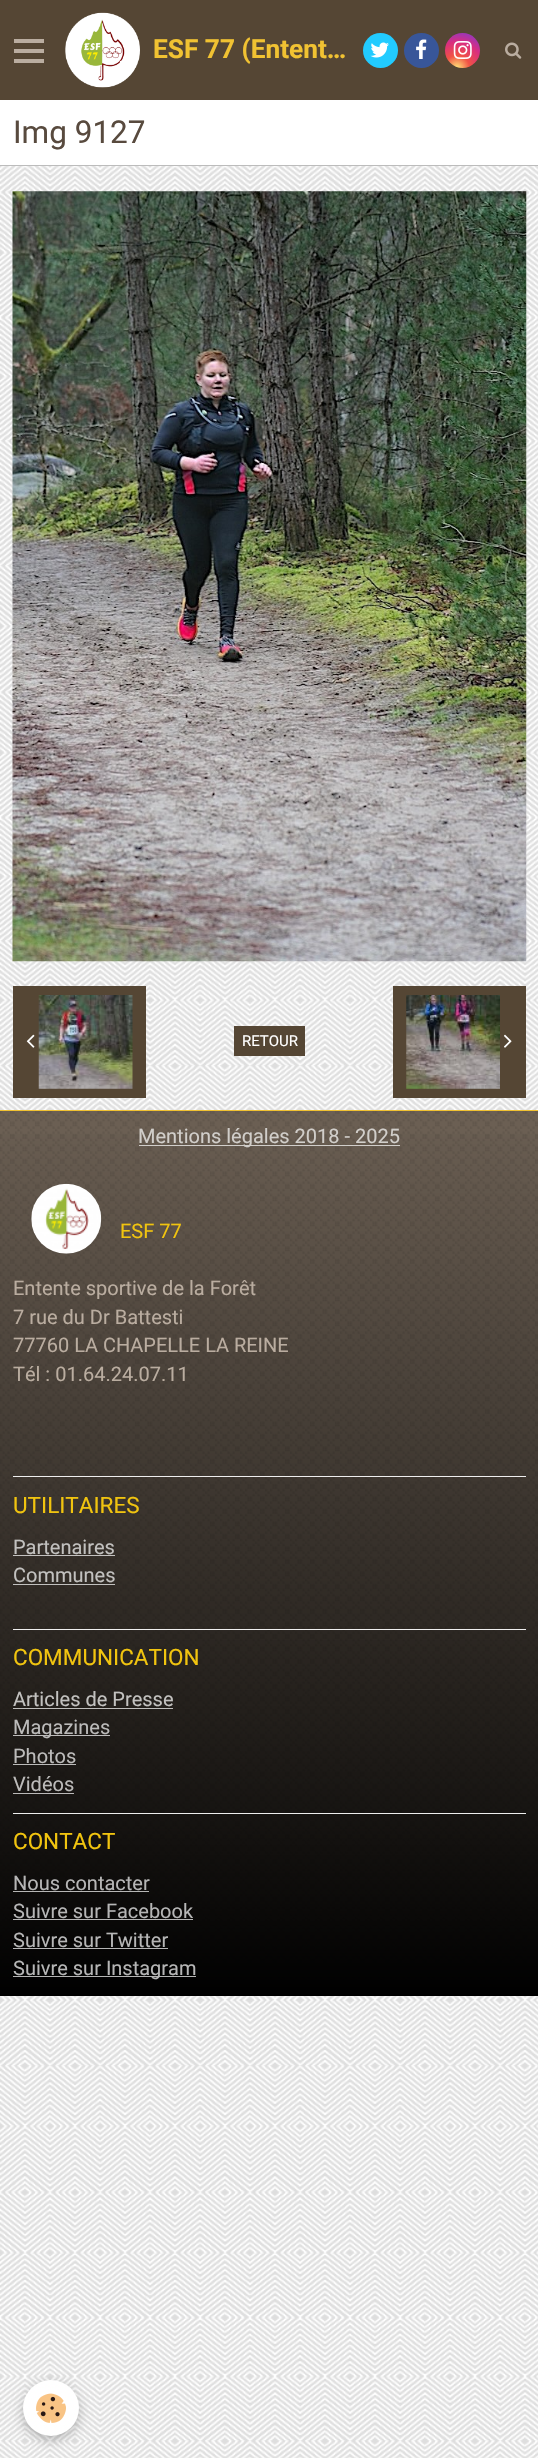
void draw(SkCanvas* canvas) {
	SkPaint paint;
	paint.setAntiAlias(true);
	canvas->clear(0xffffffff);
	canvas->drawImageRect(SkImages::DeferredFromEncodedData(SkData::MakeFromFileName("img1.png")), SkRect::MakeXYWH(0, 166, 538, 2292), SkSamplingOptions());
	paint.setColor(0xff554634);
	canvas->drawRect(SkRect::MakeXYWH(0, 0, 538, 100), paint);
	paint.setColor(0xffbaada0);
	canvas->drawRect(SkRect::MakeXYWH(14, 49, 30, 4), paint);
	canvas->drawRect(SkRect::MakeXYWH(14, 39, 30, 4), paint);
	canvas->drawRect(SkRect::MakeXYWH(14, 59, 30, 4), paint);
	canvas->drawImageRect(SkImages::DeferredFromEncodedData(SkData::MakeFromFileName("img2.png")), SkRect::MakeXYWH(65, 12, 75, 76), SkSamplingOptions());
	SkFont f1(fontMgr->matchFamilyStyle("Roboto", SkFontStyle::Bold()), 26.25);
	f1.setSubpixel(true);
	paint.setColor(0xfff1c232);
	canvas->drawString("ESF 77 (Entent…", 153, 58, f1, paint);
	paint.setColor(0xff22cbff);
	canvas->drawCircle(380.5, 50.5, 17.5, paint);
	canvas->drawImageRect(SkImages::DeferredFromEncodedData(SkData::MakeFromFileName("img3.png")), SkRect::MakeXYWH(370, 42, 19, 16), SkSamplingOptions());
	paint.setColor(0xff385699);
	canvas->drawCircle(421.5, 50.5, 17.5, paint);
	canvas->drawImageRect(SkImages::DeferredFromEncodedData(SkData::MakeFromFileName("img4.png")), SkRect::MakeXYWH(416, 39, 11, 20), SkSamplingOptions());
	{
		const SkColor colors[] = {0xfffed373, 0xfff15245, 0xffd92e7f, 0xff9b36b7, 0xff515ecf};
		const float stops[] = {0.04, 0.3, 0.62, 0.85, 1};
		paint.setShader(SkGradientShader::MakeRadial({457, 68}, 42, colors, stops, 5, SkTileMode::kClamp));
		paint.setAlpha(255);
	}
	canvas->drawCircle(462.5, 50.5, 17.5, paint);
	canvas->drawImageRect(SkImages::DeferredFromEncodedData(SkData::MakeFromFileName("img5.png")), SkRect::MakeXYWH(453, 41, 19, 18), SkSamplingOptions());
	canvas->drawImageRect(SkImages::DeferredFromEncodedData(SkData::MakeFromFileName("img6.png")), SkRect::MakeXYWH(505, 42, 17, 17), SkSamplingOptions());
	paint.setShader(nullptr);
	paint.setColor(0xffbcbcbc);
	canvas->drawRect(SkRect::MakeXYWH(0, 165, 538, 1), paint);
	SkFont f2(fontMgr->matchFamilyStyle("Roboto", SkFontStyle::Normal()), 31.5);
	f2.setSubpixel(true);
	paint.setColor(0xff584a3e);
	canvas->drawString("Img 9127", 13, 143, f2, paint);
	canvas->drawImageRect(SkImages::DeferredFromEncodedData(SkData::MakeFromFileName("img7.png")), SkRect::MakeXYWH(12, 191, 515, 771), SkSamplingOptions());
	paint.setColor(0xff554634);
	canvas->drawRect(SkRect::MakeXYWH(13, 986, 133, 112), paint);
	canvas->drawImageRect(SkImages::DeferredFromEncodedData(SkData::MakeFromFileName("img8.png")), SkRect::MakeXYWH(26, 1034, 9, 14), SkSamplingOptions());
	canvas->drawImageRect(SkImages::DeferredFromEncodedData(SkData::MakeFromFileName("img9.png")), SkRect::MakeXYWH(38, 995, 95, 94), SkSamplingOptions());
	canvas->drawRect(SkRect::MakeXYWH(234, 1026, 71, 30), paint);
	SkFont f3(fontMgr->matchFamilyStyle("Roboto", SkFontStyle::Normal()), 15);
	f3.setSubpixel(true);
	paint.setColor(0xffffffff);
	canvas->drawString("RETOUR", 242, 1046, f3, paint);
	paint.setColor(0xff554634);
	canvas->drawRect(SkRect::MakeXYWH(393, 986, 133, 112), paint);
	canvas->drawImageRect(SkImages::DeferredFromEncodedData(SkData::MakeFromFileName("img10.png")), SkRect::MakeXYWH(406, 995, 94, 94), SkSamplingOptions());
	canvas->drawImageRect(SkImages::DeferredFromEncodedData(SkData::MakeFromFileName("img11.png")), SkRect::MakeXYWH(504, 1034, 8, 14), SkSamplingOptions());
	paint.setColor(0xff6b5f53);
	canvas->drawRect(SkRect::MakeXYWH(0, 1111, 538, 880), paint);
	canvas->drawImageRect(SkImages::DeferredFromEncodedData(SkData::MakeFromFileName("img12.png")), SkRect::MakeXYWH(0, 1111, 538, 880), SkSamplingOptions());
	paint.setColor(0xfff1c232);
	canvas->drawRect(SkRect::MakeXYWH(0, 1110, 538, 1), paint);
	{
		const SkColor colors[] = {0xff000000, 0x00000000};
		const float stops[] = {0, 1};
		const SkPoint ends[] = {{269, 1996}, {269, 1111}};
		paint.setShader(SkGradientShader::MakeLinear(ends, colors, stops, 2, SkTileMode::kClamp));
		paint.setAlpha(255);
	}
	canvas->drawRect(SkRect::MakeXYWH(0, 1134, 538, 862), paint);
	paint.setShader(nullptr);
	paint.setColor(0xb3ffffff);
	canvas->drawRect(SkRect::MakeXYWH(139, 1145, 261, 1), paint);
	SkFont f4(fontMgr->matchFamilyStyle("Roboto", SkFontStyle::Normal()), 20);
	f4.setSubpixel(true);
	paint.setColor(0xffd1ceca);
	canvas->drawString("Mentions légales 2018 - 2025", 138, 1143, f4, paint);
	canvas->drawImageRect(SkImages::DeferredFromEncodedData(SkData::MakeFromFileName("img13.png")), SkRect::MakeXYWH(31, 1183, 71, 71), SkSamplingOptions());
	paint.setColor(0xfff1c40f);
	canvas->drawString("ESF 77", 120, 1238, f4, paint);
	paint.setColor(0xffbaada0);
	canvas->drawString("Entente sportive de la Forêt", 13, 1295, f4, paint);
	canvas->drawString("7 rue du Dr Battesti", 13, 1324, f4, paint);
	canvas->drawString("77760 LA CHAPELLE LA REINE", 13, 1352, f4, paint);
	canvas->drawString("Tél : 01.64.24.07.11", 13, 1381, f4, paint);
	paint.setColor(0xffeeeeee);
	canvas->drawRect(SkRect::MakeXYWH(13, 1476, 513, 1), paint);
	SkFont f5(fontMgr->matchFamilyStyle("Roboto", SkFontStyle::Normal()), 22.5);
	f5.setSubpixel(true);
	paint.setColor(0xfff1c40f);
	canvas->drawString("UTILITAIRES", 13, 1513, f5, paint);
	paint.setColor(0xffc2c1bf);
	canvas->drawString("Partenaires", 13, 1554, f4, paint);
	paint.setColor(0xb3ffffff);
	canvas->drawRect(SkRect::MakeXYWH(13, 1555, 102, 1), paint);
	paint.setColor(0xffc2c1bf);
	canvas->drawString("Communes", 13, 1582, f4, paint);
	paint.setColor(0xb3ffffff);
	canvas->drawRect(SkRect::MakeXYWH(13, 1584, 102, 1), paint);
	paint.setColor(0xffeeeeee);
	canvas->drawRect(SkRect::MakeXYWH(13, 1629, 513, 1), paint);
	paint.setColor(0xfff1c40f);
	canvas->drawString("COMMUNICATION", 13, 1665, f5, paint);
	paint.setColor(0xffc2c1bf);
	canvas->drawString("Articles de Presse", 13, 1706, f4, paint);
	paint.setColor(0xffbdbcba);
	canvas->drawRect(SkRect::MakeXYWH(13, 1708, 160, 1), paint);
	paint.setColor(0xb3ffffff);
	canvas->drawRect(SkRect::MakeXYWH(13, 1735, 97, 1), paint);
	paint.setColor(0xffbcbbba);
	canvas->drawString("Magazines", 13, 1734, f4, paint);
	canvas->drawString("Photos", 13, 1763, f4, paint);
	paint.setColor(0xffbbbab9);
	canvas->drawRect(SkRect::MakeXYWH(13, 1764, 63, 1), paint);
	paint.setColor(0xffbcbbba);
	canvas->drawString("Vidéos", 13, 1791, f4, paint);
	paint.setColor(0xffbab9b8);
	canvas->drawRect(SkRect::MakeXYWH(13, 1793, 61, 1), paint);
	paint.setColor(0xffeeeeee);
	canvas->drawRect(SkRect::MakeXYWH(13, 1813, 513, 1), paint);
	paint.setColor(0xfff1c40f);
	canvas->drawString("CONTACT", 13, 1849, f5, paint);
	paint.setColor(0xffb6b6b6);
	canvas->drawString("Nous contacter", 13, 1890, f4, paint);
	paint.setColor(0xffb6b6b5);
	canvas->drawRect(SkRect::MakeXYWH(13, 1891, 136, 1), paint);
	paint.setColor(0xffb6b6b6);
	canvas->drawString("Suivre sur Facebook", 13, 1918, f4, paint);
	paint.setColor(0xffb5b5b5);
	canvas->drawRect(SkRect::MakeXYWH(13, 1919, 180, 1), paint);
	paint.setColor(0xffb6b6b6);
	canvas->drawString("Suivre sur Twitter", 13, 1947, f4, paint);
	paint.setColor(0xffb4b4b4);
	canvas->drawRect(SkRect::MakeXYWH(13, 1948, 155, 1), paint);
	paint.setColor(0xffb3b3b3);
	canvas->drawRect(SkRect::MakeXYWH(13, 1976, 183, 1), paint);
	paint.setColor(0xffb6b6b6);
	canvas->drawString("Suivre sur Instagram", 13, 1975, f4, paint);
	paint.setColor(0x3d000000);
	paint.setMaskFilter(SkMaskFilter::MakeBlur(kNormal_SkBlurStyle, 6));
	canvas->drawRoundRect(SkRect::MakeXYWH(23, 2384, 56, 56), 28, 28, paint);
	paint.setMaskFilter(nullptr);
	paint.setColor(0xffffffff);
	canvas->drawCircle(51, 2408, 28, paint);
	canvas->drawImageRect(SkImages::DeferredFromEncodedData(SkData::MakeFromFileName("img14.png")), SkRect::MakeXYWH(36, 2393, 30, 30), SkSamplingOptions());
}
